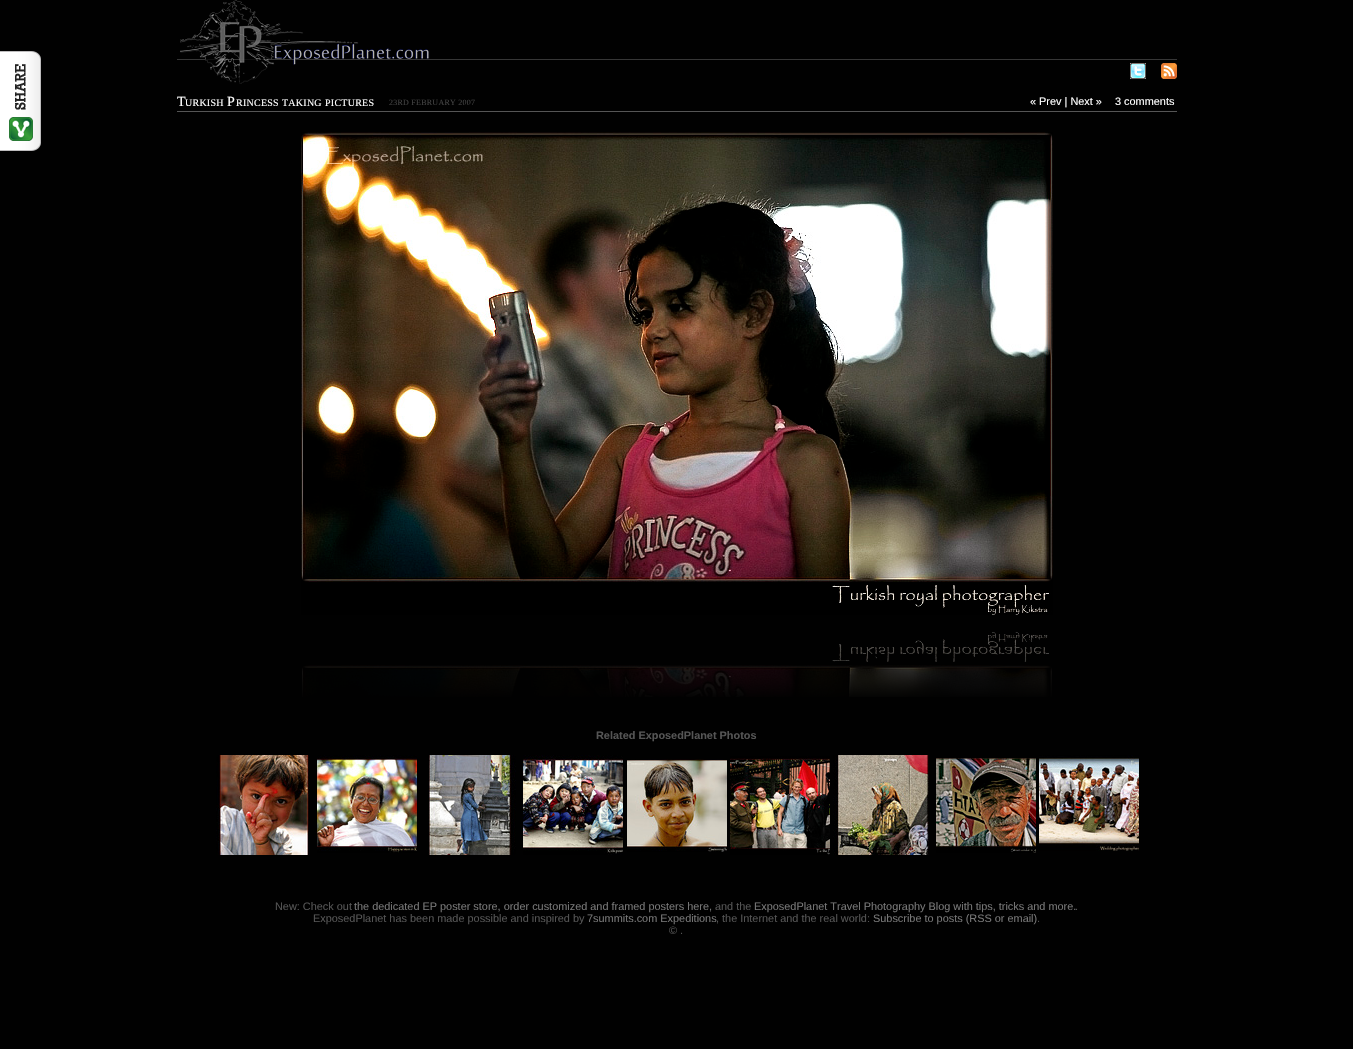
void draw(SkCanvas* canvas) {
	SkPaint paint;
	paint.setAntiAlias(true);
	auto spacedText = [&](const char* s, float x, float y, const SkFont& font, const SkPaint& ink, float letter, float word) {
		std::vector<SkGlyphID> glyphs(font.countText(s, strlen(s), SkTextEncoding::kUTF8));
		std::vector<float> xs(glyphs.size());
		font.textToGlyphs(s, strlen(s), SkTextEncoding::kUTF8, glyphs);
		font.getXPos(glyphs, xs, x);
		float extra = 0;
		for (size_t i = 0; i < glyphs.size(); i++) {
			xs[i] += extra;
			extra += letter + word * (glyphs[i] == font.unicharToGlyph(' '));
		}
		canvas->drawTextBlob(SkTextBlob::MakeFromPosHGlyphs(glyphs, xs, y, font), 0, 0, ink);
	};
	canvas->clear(0xff010101);
	canvas->drawImageRect(SkImages::DeferredFromEncodedData(SkData::MakeFromFileName("img1.png")), SkRect::MakeXYWH(0, 51, 41, 100), SkSamplingOptions());
	paint.setColor(0xff363636);
	canvas->drawRect(SkRect::MakeXYWH(177, 59, 1000, 1), paint);
	canvas->drawImageRect(SkImages::DeferredFromEncodedData(SkData::MakeFromFileName("img2.png")), SkRect::MakeXYWH(180, 0, 249, 84), SkSamplingOptions());
	canvas->drawImageRect(SkImages::DeferredFromEncodedData(SkData::MakeFromFileName("img3.png")), SkRect::MakeXYWH(1130, 63, 16, 16), SkSamplingOptions());
	canvas->drawImageRect(SkImages::DeferredFromEncodedData(SkData::MakeFromFileName("img4.png")), SkRect::MakeXYWH(1161, 63, 16, 16), SkSamplingOptions());
	SkFont f1(fontMgr->matchFamilyStyle("Liberation Serif", SkFontStyle::Normal()), 14);
	f1.setSubpixel(true);
	paint.setColor(0xffffffff);
	spacedText("T", 177, 106, f1, paint, 0.25, 0);
	SkFont f2(fontMgr->matchFamilyStyle("Liberation Serif", SkFontStyle::Normal()), 10);
	f2.setSubpixel(true);
	spacedText("URKISH", 185, 106, f2, paint, 0.25, 0);
	spacedText("P", 227, 106, f1, paint, 0.25, 0);
	spacedText("RINCESS", 236, 106, f2, paint, 0.25, 0);
	spacedText("TAKING", 282, 106, f2, paint, 0.25, 0);
	spacedText("PICTURES", 325, 106, f2, paint, 0.25, 0);
	SkFont f3(fontMgr->matchFamilyStyle("Liberation Serif", SkFontStyle::Normal()), 8);
	f3.setSubpixel(true);
	paint.setColor(0xff444444);
	spacedText("23RD FEBRUARY 2007", 389, 105, f3, paint, 0.25, 0);
	SkFont f4(fontMgr->matchFamilyStyle("Liberation Sans", SkFontStyle::Normal()), 10.9);
	f4.setSubpixel(true);
	paint.setColor(0xffffffff);
	canvas->drawString("« Prev | Next »", 1030, 105, f4, paint);
	canvas->drawString("3 comments", 1115, 105, f4, paint);
	paint.setColor(0xff555555);
	canvas->drawRect(SkRect::MakeXYWH(177, 111, 1000, 1), paint);
	canvas->drawImageRect(SkImages::DeferredFromEncodedData(SkData::MakeFromFileName("img5.png")), SkRect::MakeXYWH(301, 132, 752, 483), SkSamplingOptions());
	canvas->drawImageRect(SkImages::DeferredFromEncodedData(SkData::MakeFromFileName("img6.png")), SkRect::MakeXYWH(302, 632, 750, 65), SkSamplingOptions());
	SkFont f5(fontMgr->matchFamilyStyle("Liberation Sans", SkFontStyle::Bold()), 10.9);
	f5.setSubpixel(true);
	canvas->drawString("Related ExposedPlanet Photos", 596, 739, f5, paint);
	canvas->drawImageRect(SkImages::DeferredFromEncodedData(SkData::MakeFromFileName("img7.png")), SkRect::MakeXYWH(216, 755, 94, 100), SkSamplingOptions());
	canvas->drawImageRect(SkImages::DeferredFromEncodedData(SkData::MakeFromFileName("img8.png")), SkRect::MakeXYWH(317, 755, 100, 98), SkSamplingOptions());
	canvas->drawImageRect(SkImages::DeferredFromEncodedData(SkData::MakeFromFileName("img9.png")), SkRect::MakeXYWH(428, 755, 88, 100), SkSamplingOptions());
	canvas->drawImageRect(SkImages::DeferredFromEncodedData(SkData::MakeFromFileName("img10.png")), SkRect::MakeXYWH(523, 755, 100, 100), SkSamplingOptions());
	canvas->drawImageRect(SkImages::DeferredFromEncodedData(SkData::MakeFromFileName("img11.png")), SkRect::MakeXYWH(627, 759, 100, 93), SkSamplingOptions());
	canvas->drawImageRect(SkImages::DeferredFromEncodedData(SkData::MakeFromFileName("img12.png")), SkRect::MakeXYWH(730, 756, 100, 99), SkSamplingOptions());
	canvas->drawImageRect(SkImages::DeferredFromEncodedData(SkData::MakeFromFileName("img13.png")), SkRect::MakeXYWH(833, 755, 96, 100), SkSamplingOptions());
	canvas->drawImageRect(SkImages::DeferredFromEncodedData(SkData::MakeFromFileName("img14.png")), SkRect::MakeXYWH(936, 758, 100, 95), SkSamplingOptions());
	canvas->drawImageRect(SkImages::DeferredFromEncodedData(SkData::MakeFromFileName("img15.png")), SkRect::MakeXYWH(1039, 755, 100, 96), SkSamplingOptions());
	canvas->drawString("New: Check out", 275, 910, f4, paint);
	paint.setColor(0xff777777);
	canvas->drawString("the dedicated EP poster store, order customized and framed posters here,", 354, 910, f4, paint);
	paint.setColor(0xff555555);
	canvas->drawString("and the", 715, 910, f4, paint);
	paint.setColor(0xff777777);
	canvas->drawString("ExposedPlanet Travel Photography Blog with tips, tricks and more.", 754, 910, f4, paint);
	paint.setColor(0xff555555);
	canvas->drawString(".", 1075, 910, f4, paint);
	canvas->drawString("ExposedPlanet has been made possible and inspired by", 313, 922, f4, paint);
	paint.setColor(0xff777777);
	canvas->drawString("7summits.com Expeditions", 587, 922, f4, paint);
	paint.setColor(0xff555555);
	canvas->drawString(", the Internet and the real world:", 716, 922, f4, paint);
	paint.setColor(0xff777777);
	canvas->drawString("Subscribe to posts (RSS or email)", 873, 922, f4, paint);
	paint.setColor(0xff555555);
	canvas->drawString(".", 1037, 922, f4, paint);
	canvas->drawString("© .", 669, 934, f4, paint);
}
